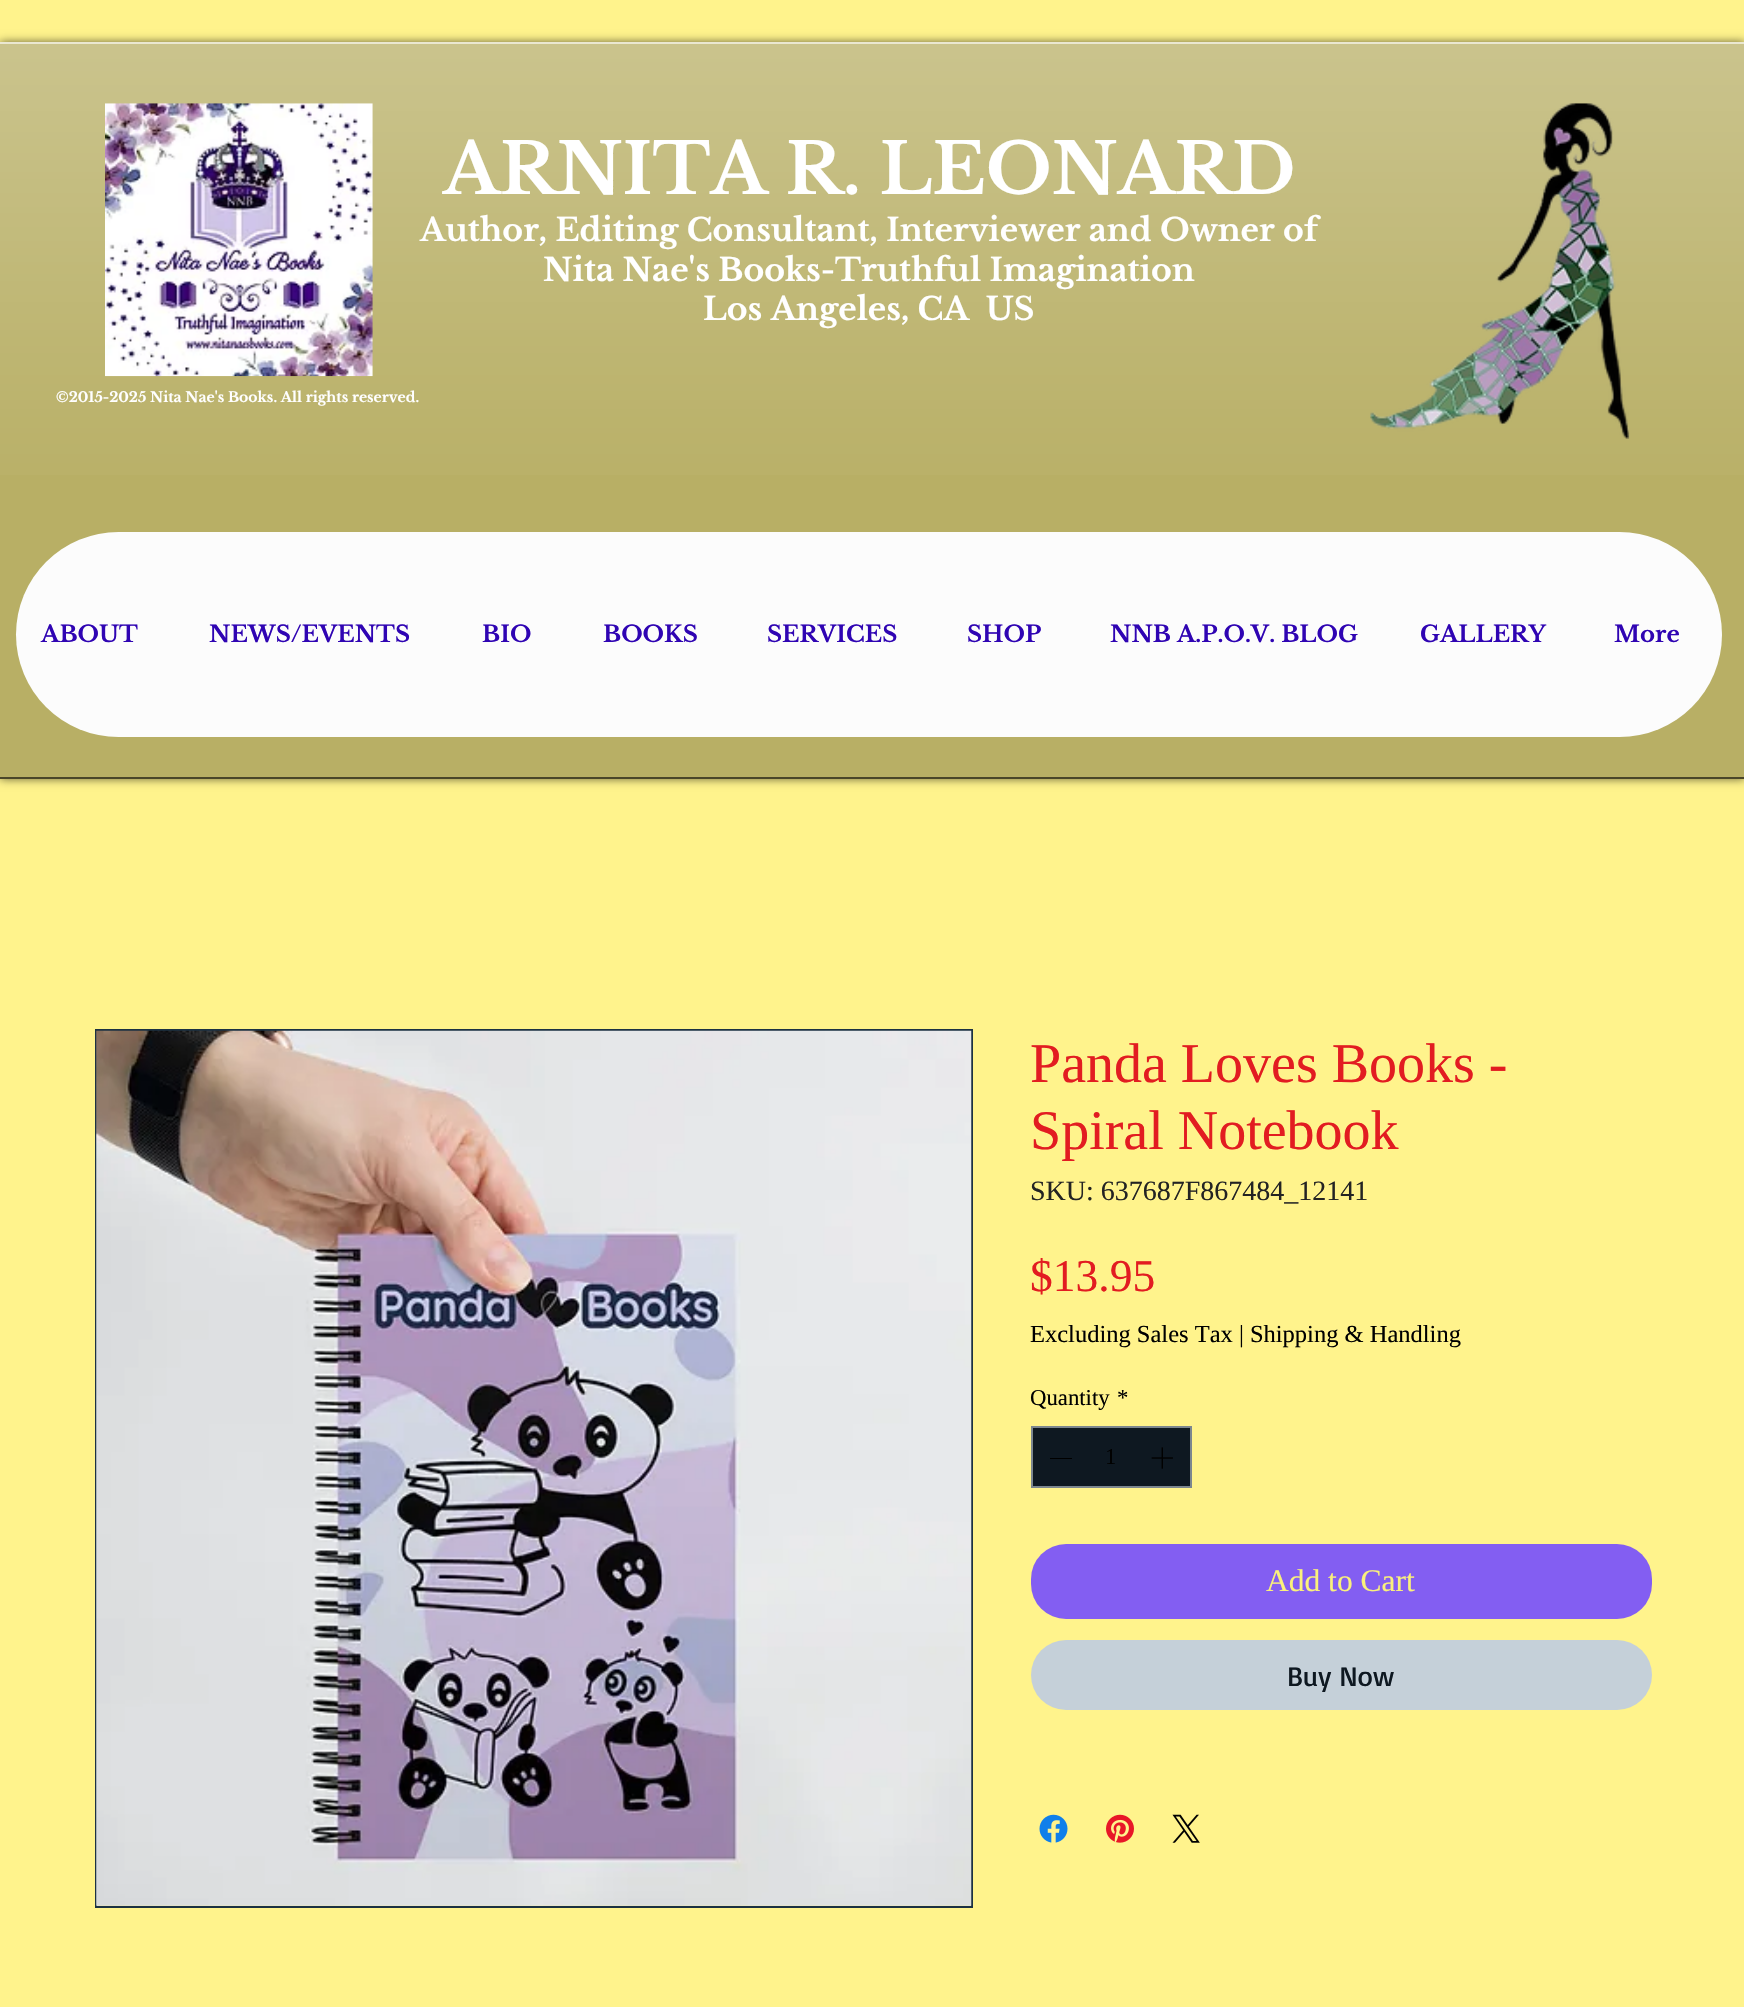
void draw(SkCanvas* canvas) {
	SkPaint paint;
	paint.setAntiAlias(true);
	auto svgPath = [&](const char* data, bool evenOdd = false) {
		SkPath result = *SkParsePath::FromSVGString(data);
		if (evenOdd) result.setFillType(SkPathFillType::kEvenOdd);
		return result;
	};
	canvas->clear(0xfffff38c);
	canvas->save();
	canvas->clipPath(svgPath("M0 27H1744V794H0ZM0 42H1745V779H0Z", true), true);
	paint.setColor(0x99000000);
	paint.setMaskFilter(SkMaskFilter::MakeBlur(kNormal_SkBlurStyle, 4.5));
	canvas->drawRect(SkRect::MakeXYWH(0, 42, 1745, 737), paint);
	paint.setMaskFilter(nullptr);
	canvas->restore();
	paint.setColor(0x47000000);
	canvas->drawRect(SkRect::MakeXYWH(0, 44, 1744, 735), paint);
	canvas->drawImageRect(SkImages::DeferredFromEncodedData(SkData::MakeFromFileName("img1.png")), SkRect::MakeXYWH(0, 44, 1744, 431), SkSamplingOptions());
	paint.setColor(0x99000000);
	canvas->drawRect(SkRect::MakeXYWH(0, 777, 1744, 2), paint);
	paint.setColor(0xffeae7d1);
	canvas->drawRect(SkRect::MakeXYWH(0, 42, 1744, 2), paint);
	canvas->drawImageRect(SkImages::DeferredFromEncodedData(SkData::MakeFromFileName("img2.png")), SkRect::MakeXYWH(105, 103, 268, 274), SkSamplingOptions());
	canvas->drawImageRect(SkImages::DeferredFromEncodedData(SkData::MakeFromFileName("img3.png")), SkRect::MakeXYWH(1370, 103, 260, 336), SkSamplingOptions());
	SkFont f1(fontMgr->matchFamilyStyle("Libre Baskerville", SkFontStyle::Bold()), 70);
	f1.setSubpixel(true);
	paint.setColor(0xffffffff);
	canvas->drawString("ARNITA R. LEONARD", 443, 194, f1, paint);
	SkFont f2(fontMgr->matchFamilyStyle("Libre Baskerville", SkFontStyle::Bold()), 31.5);
	f2.setSubpixel(true);
	canvas->drawString("Author, Editing Consultant, Interviewer and Owner of", 420, 241, f2, paint);
	canvas->drawString("Nita Nae's Books-Truthful Imagination", 543, 281, f2, paint);
	canvas->drawString("Los Angeles, CA  US", 703, 320, f2, paint);
	SkFont f3(fontMgr->matchFamilyStyle("Libre Baskerville", SkFontStyle::Bold()), 14);
	f3.setSubpixel(true);
	canvas->drawString("©2015-2025 Nita Nae's Books. All rights reserved.", 56, 402, f3, paint);
	paint.setColor(0xfffcfcfc);
	canvas->drawRoundRect(SkRect::MakeXYWH(16, 532, 1706, 205), 102.5, 102.5, paint);
	SkFont f4(fontMgr->matchFamilyStyle("Libre Baskerville", SkFontStyle::Bold()), 22.75);
	f4.setSubpixel(true);
	paint.setColor(0xff2f04b3);
	canvas->drawString("ABOUT", 41, 642, f4, paint);
	canvas->drawString("NEWS/EVENTS", 209, 642, f4, paint);
	canvas->drawString("BIO", 482, 642, f4, paint);
	canvas->drawString("BOOKS", 603, 642, f4, paint);
	canvas->drawString("SERVICES", 767, 642, f4, paint);
	canvas->drawString("SHOP", 967, 642, f4, paint);
	canvas->drawString("NNB A.P.O.V. BLOG", 1110, 642, f4, paint);
	canvas->drawString("GALLERY", 1420, 642, f4, paint);
	canvas->drawString("More", 1614, 642, f4, paint);
	paint.setStroke(true);
	paint.setStrokeWidth(2);
	paint.setColor(0xff1c3142);
	canvas->drawRect(SkRect::MakeXYWH(96, 1030, 876, 877), paint);
	canvas->drawImageRect(SkImages::DeferredFromEncodedData(SkData::MakeFromFileName("img4.png")), SkRect::MakeXYWH(96, 1030, 876, 876), SkSamplingOptions());
	SkFont f5(fontMgr->matchFamilyStyle("Liberation Serif", SkFontStyle::Normal()), 56);
	f5.setSubpixel(true);
	paint.setStroke(false);
	paint.setColor(0xffe21c21);
	canvas->drawString("Panda Loves Books -", 1030, 1082, f5, paint);
	canvas->drawString("Spiral Notebook", 1030, 1149, f5, paint);
	SkFont f6(fontMgr->matchFamilyStyle("Liberation Serif", SkFontStyle::Normal()), 28);
	f6.setSubpixel(true);
	paint.setColor(0xff232323);
	canvas->drawString("SKU: 637687F867484_12141", 1030, 1200, f6, paint);
	SkFont f7(fontMgr->matchFamilyStyle("Liberation Serif", SkFontStyle::Normal()), 45.5);
	f7.setSubpixel(true);
	paint.setColor(0xffe21c21);
	canvas->drawString("$13.95", 1030, 1291, f7, paint);
	SkFont f8(fontMgr->matchFamilyStyle("Liberation Serif", SkFontStyle::Normal()), 24.5);
	f8.setSubpixel(true);
	paint.setColor(0xff000000);
	canvas->drawString("Excluding Sales Tax | Shipping & Handling", 1030, 1342, f8, paint);
	SkFont f9(fontMgr->matchFamilyStyle("Liberation Serif", SkFontStyle::Normal()), 22.75);
	f9.setSubpixel(true);
	canvas->drawString("Quantity", 1030, 1405, f9, paint);
	canvas->drawString("*", 1117, 1405, f9, paint);
	paint.setColor(0xff0e1821);
	canvas->drawRect(SkRect::MakeXYWH(1032, 1427, 159, 60), paint);
	paint.setStroke(true);
	paint.setColor(0xff7c868f);
	canvas->drawRect(SkRect::MakeXYWH(1032, 1427, 159, 60), paint);
	paint.setStroke(false);
	paint.setColor(0xff000000);
	canvas->drawRect(SkRect::MakeXYWH(1050, 1458, 22, 1), paint);
	canvas->drawString("1", 1105, 1464, f9, paint);
	canvas->drawImageRect(SkImages::DeferredFromEncodedData(SkData::MakeFromFileName("img5.png")), SkRect::MakeXYWH(1151, 1447, 22, 22), SkSamplingOptions());
	paint.setColor(0xff835ef2);
	canvas->drawRoundRect(SkRect::MakeXYWH(1031, 1544, 621, 75), 35, 35, paint);
	SkFont f10(fontMgr->matchFamilyStyle("Liberation Serif", SkFontStyle::Normal()), 31.5);
	f10.setSubpixel(true);
	paint.setColor(0xfffaf17c);
	canvas->drawString("Add to Cart", 1266, 1591, f10, paint);
	paint.setColor(0xffc5d0d9);
	canvas->drawRoundRect(SkRect::MakeXYWH(1031, 1640, 621, 70), 35, 35, paint);
	canvas->save();
	canvas->clipRect(SkRect::MakeXYWH(1286, 1657, 109, 35));
	SkFont f11(fontMgr->matchFamilyStyle("Basic", SkFontStyle::Normal()), 28);
	f11.setSubpixel(true);
	paint.setColor(0xff0e1821);
	canvas->drawString("Buy Now", 1287, 1686, f11, paint);
	canvas->restore();
	canvas->drawImageRect(SkImages::DeferredFromEncodedData(SkData::MakeFromFileName("img6.png")), SkRect::MakeXYWH(1039, 1814, 29, 29), SkSamplingOptions());
	canvas->drawImageRect(SkImages::DeferredFromEncodedData(SkData::MakeFromFileName("img7.png")), SkRect::MakeXYWH(1106, 1814, 28, 29), SkSamplingOptions());
	canvas->drawImageRect(SkImages::DeferredFromEncodedData(SkData::MakeFromFileName("img8.png")), SkRect::MakeXYWH(1172, 1814, 28, 29), SkSamplingOptions());
}
